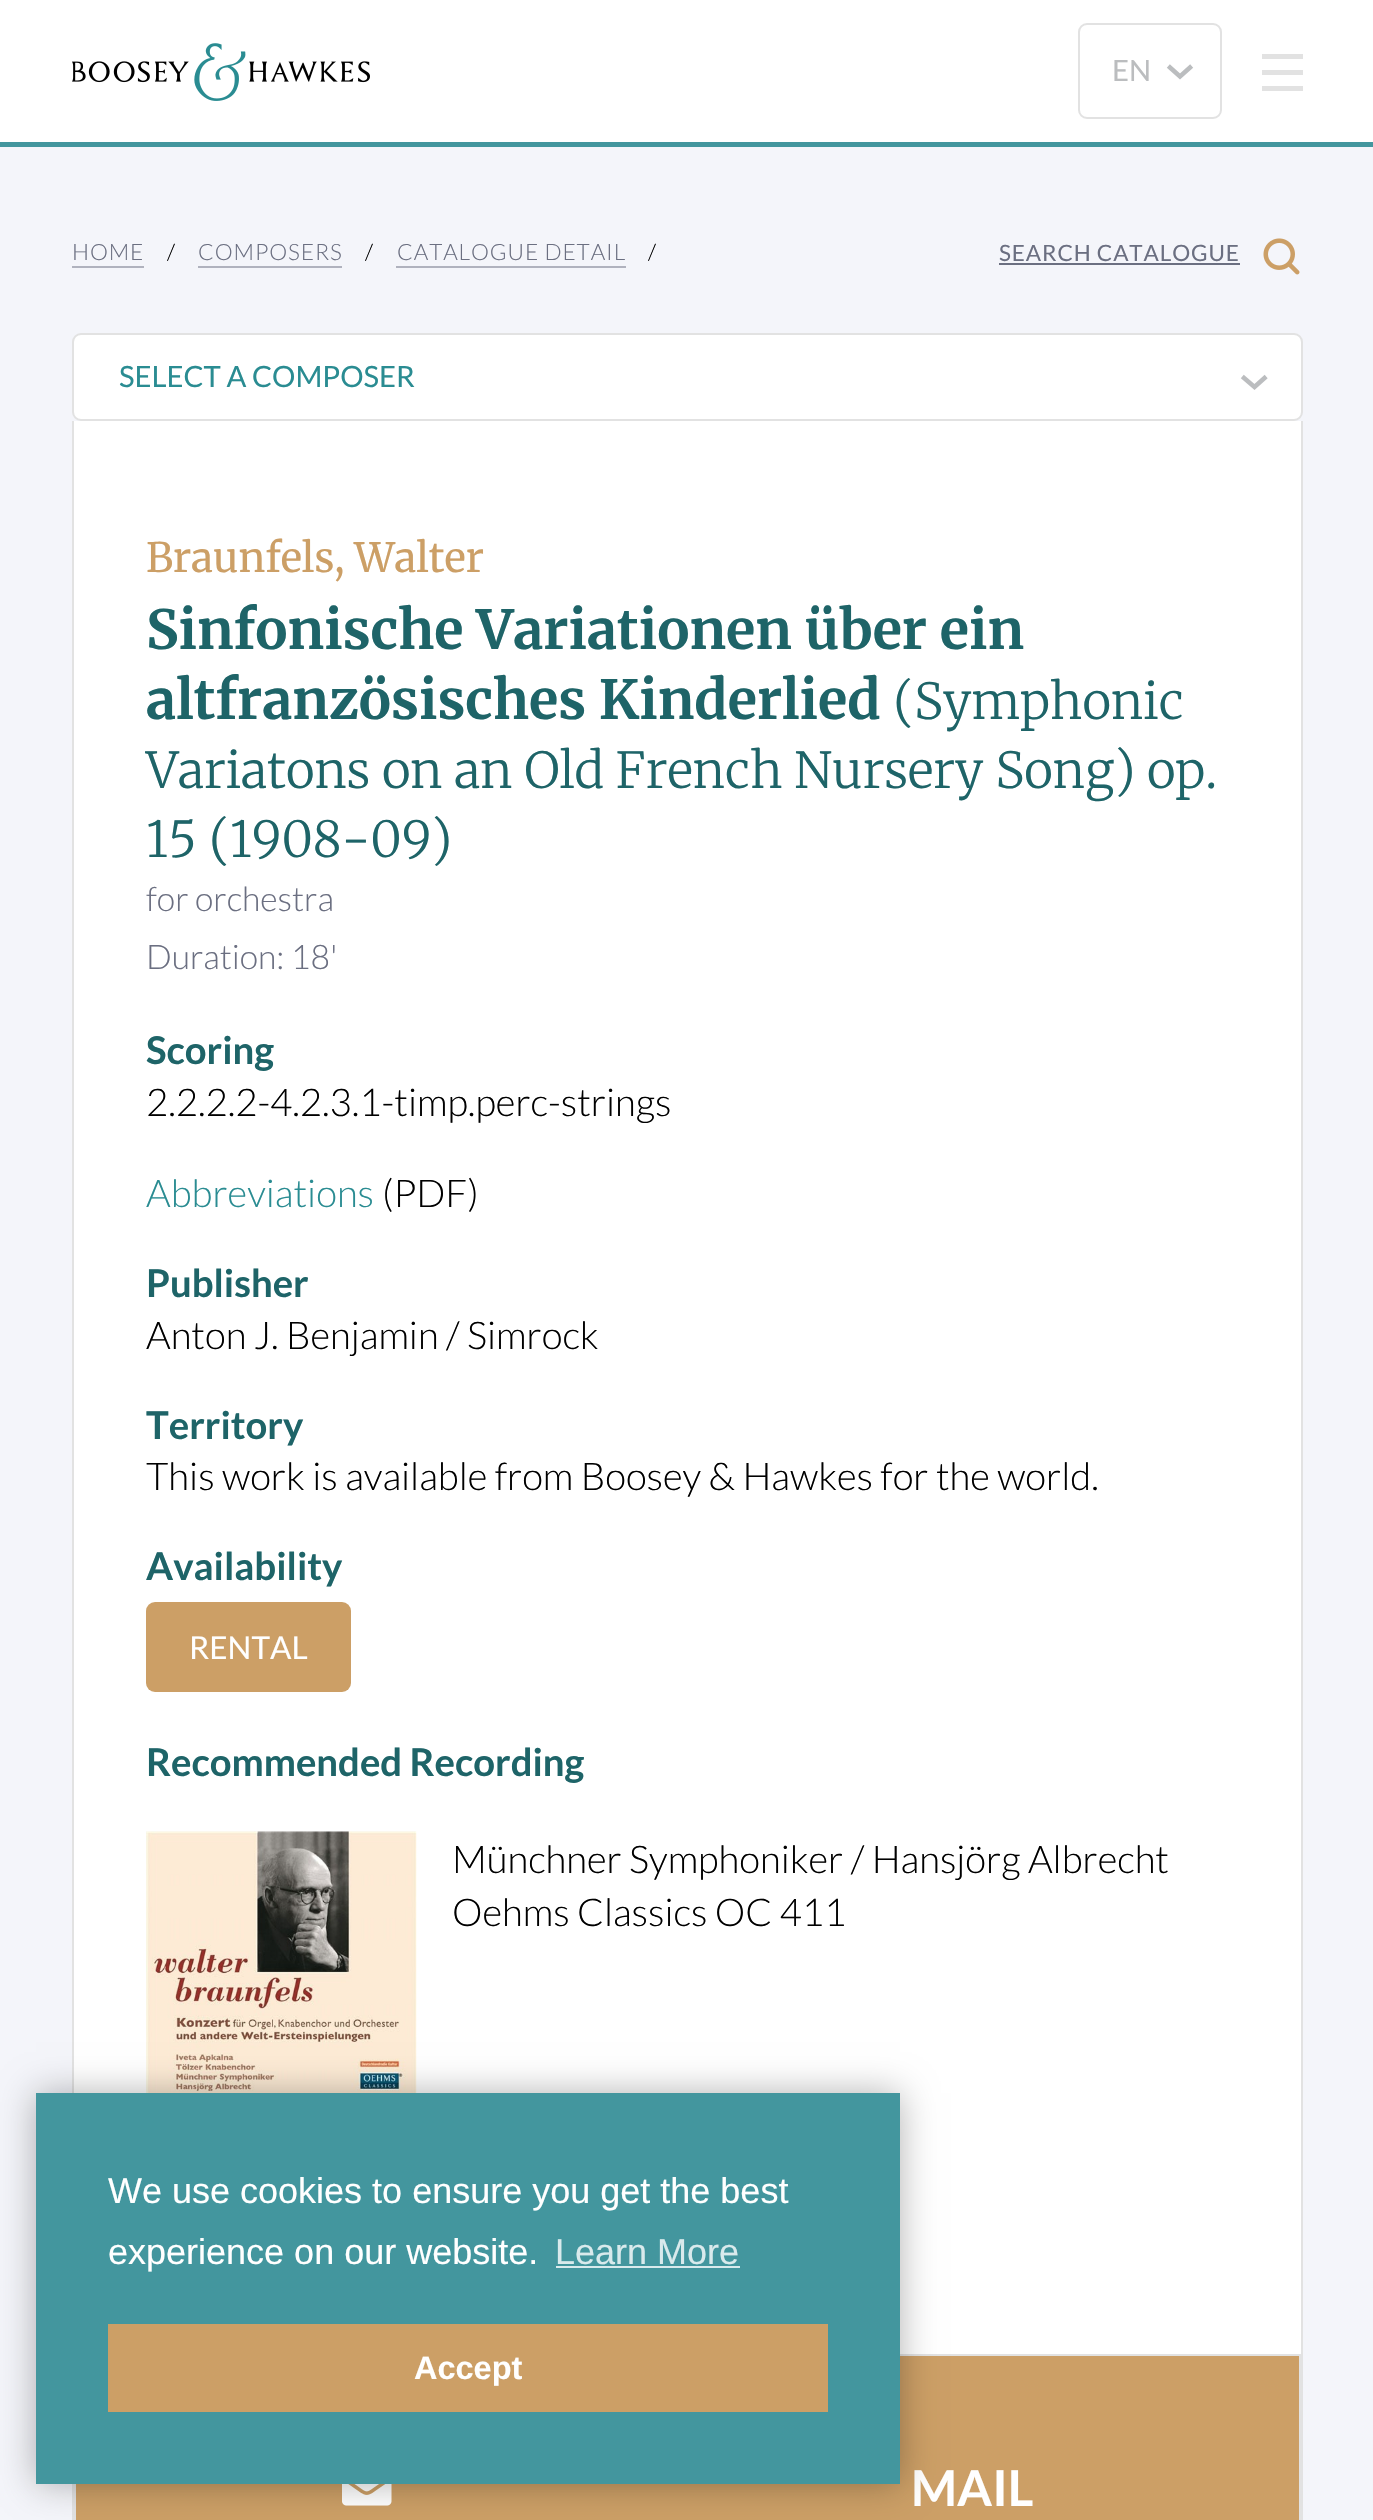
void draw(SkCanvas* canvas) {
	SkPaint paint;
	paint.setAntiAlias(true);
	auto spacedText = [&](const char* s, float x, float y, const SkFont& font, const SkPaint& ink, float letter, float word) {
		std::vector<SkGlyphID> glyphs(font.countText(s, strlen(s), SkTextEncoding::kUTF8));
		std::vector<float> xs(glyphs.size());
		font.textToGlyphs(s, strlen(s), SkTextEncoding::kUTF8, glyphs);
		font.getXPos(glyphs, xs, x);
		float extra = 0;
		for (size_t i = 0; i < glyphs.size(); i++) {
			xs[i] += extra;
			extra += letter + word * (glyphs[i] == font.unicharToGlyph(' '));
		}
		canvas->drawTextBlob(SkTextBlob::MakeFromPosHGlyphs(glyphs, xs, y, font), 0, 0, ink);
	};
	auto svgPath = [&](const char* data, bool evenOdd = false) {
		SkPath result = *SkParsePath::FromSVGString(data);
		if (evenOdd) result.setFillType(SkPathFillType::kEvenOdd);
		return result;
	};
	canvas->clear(0xfff4f5fa);
	paint.setColor(0xffffffff);
	canvas->drawRect(SkRect::MakeXYWH(0, 0, 1373, 142), paint);
	canvas->drawImageRect(SkImages::DeferredFromEncodedData(SkData::MakeFromFileName("img1.png")), SkRect::MakeXYWH(72, 43, 298, 58), SkSamplingOptions());
	paint.setStroke(true);
	paint.setStrokeWidth(2);
	paint.setColor(0xffe2e2e2);
	canvas->drawRoundRect(SkRect::MakeXYWH(1079, 24, 142, 94), 8, 8, paint);
	SkFont f1(fontMgr->matchFamilyStyle("Lato", SkFontStyle::Normal()), 29.25);
	f1.setSubpixel(true);
	paint.setStroke(false);
	paint.setColor(0xffbbbdbf);
	canvas->drawString("EN", 1112, 81, f1, paint);
	paint.setStroke(true);
	paint.setStrokeWidth(4.5);
	paint.setStrokeCap(SkPaint::kSquare_Cap);
	canvas->drawPath(svgPath("M1190 67.5L1180 76.5L1170 67.5"), paint);
	paint.setStroke(false);
	paint.setColor(0xffe2e2e2);
	canvas->drawRect(SkRect::MakeXYWH(1262, 70, 41, 5), paint);
	canvas->drawRect(SkRect::MakeXYWH(1262, 54, 41, 5), paint);
	canvas->drawRect(SkRect::MakeXYWH(1262, 86, 41, 5), paint);
	paint.setColor(0xff43969e);
	canvas->drawRect(SkRect::MakeXYWH(0, 142, 1373, 5), paint);
	SkFont f2(fontMgr->matchFamilyStyle("Lato", SkFontStyle(300, SkFontStyle::kNormal_Width, SkFontStyle::kUpright_Slant)), 22.5);
	f2.setSubpixel(true);
	paint.setColor(0xff6b6f81);
	spacedText("HOME", 72, 260, f2, paint, 0.9, 0);
	paint.setColor(0xffb0b2be);
	canvas->drawRect(SkRect::MakeXYWH(72, 266, 72, 2), paint);
	paint.setColor(0xff000000);
	spacedText("/", 167, 260, f2, paint, 0.9, 0);
	paint.setColor(0xff6b6f81);
	spacedText("COMPOSERS", 198, 260, f2, paint, 0.9, 0);
	paint.setColor(0xffb0b2be);
	canvas->drawRect(SkRect::MakeXYWH(198, 266, 144, 2), paint);
	paint.setColor(0xff000000);
	spacedText("/", 365, 260, f2, paint, 0.9, 0);
	paint.setColor(0xff6b6f81);
	spacedText("CATALOGUE DETAIL", 397, 260, f2, paint, 0.9, 0);
	paint.setColor(0xffb0b2be);
	canvas->drawRect(SkRect::MakeXYWH(396, 266, 230, 2), paint);
	paint.setColor(0xff000000);
	spacedText("/", 648, 260, f2, paint, 0.9, 0);
	SkFont f3(fontMgr->matchFamilyStyle("Lato", SkFontStyle::Normal()), 22.5);
	f3.setSubpixel(true);
	paint.setColor(0xff6b6f81);
	spacedText("SEARCH CATALOGUE", 999, 261, f3, paint, 0.9, 0);
	canvas->drawRect(SkRect::MakeXYWH(999, 263, 241, 2), paint);
	canvas->drawImageRect(SkImages::DeferredFromEncodedData(SkData::MakeFromFileName("img2.png")), SkRect::MakeXYWH(1263, 238, 37, 37), SkSamplingOptions());
	paint.setColor(0xffffffff);
	canvas->drawRoundRect(SkRect::MakeXYWH(73, 334, 1229, 86), 8, 8, paint);
	paint.setStroke(true);
	paint.setStrokeWidth(2);
	paint.setStrokeCap(SkPaint::kButt_Cap);
	paint.setColor(0xffe2e2e2);
	canvas->drawRoundRect(SkRect::MakeXYWH(73, 334, 1229, 86), 8, 8, paint);
	paint.setStroke(false);
	paint.setColor(0xff2a8c92);
	canvas->drawString("SELECT A COMPOSER", 119, 387, f1, paint);
	paint.setStroke(true);
	paint.setStrokeWidth(4.5);
	paint.setStrokeCap(SkPaint::kSquare_Cap);
	paint.setColor(0xffbbbdbf);
	canvas->drawPath(svgPath("M1264.5 378L1254.5 387L1244 378"), paint);
	paint.setStroke(false);
	paint.setColor(0xffffffff);
	canvas->drawRect(SkRect::MakeXYWH(74, 421, 1227, 1933), paint);
	paint.setColor(0xffe2e2e2);
	canvas->drawRect(SkRect::MakeXYWH(1301, 421, 2, 2099), paint);
	canvas->drawRect(SkRect::MakeXYWH(72, 421, 2, 2099), paint);
	SkFont f4(fontMgr->matchFamilyStyle("Merriweather", SkFontStyle::Normal()), 40.5);
	f4.setSubpixel(true);
	paint.setColor(0xffcc9f66);
	canvas->drawString("Braunfels, Walter", 146, 572, f4, paint);
	SkFont f5(fontMgr->matchFamilyStyle("Merriweather", SkFontStyle::Bold()), 54);
	f5.setSubpixel(true);
	paint.setColor(0xff1e6468);
	canvas->drawString("Sinfonische Variationen über ein", 146, 649, f5, paint);
	canvas->drawString("altfranzösisches Kinderlied", 146, 719, f5, paint);
	SkFont f6(fontMgr->matchFamilyStyle("Merriweather", SkFontStyle(300, SkFontStyle::kNormal_Width, SkFontStyle::kUpright_Slant)), 49.5);
	f6.setSubpixel(true);
	canvas->drawString("(Symphonic", 893, 719, f6, paint);
	canvas->drawString("Variatons on an Old French Nursery Song) op.", 146, 788, f6, paint);
	canvas->drawString("15 (1908-09)", 146, 857, f6, paint);
	SkFont f7(fontMgr->matchFamilyStyle("Lato", SkFontStyle(300, SkFontStyle::kNormal_Width, SkFontStyle::kUpright_Slant)), 33.75);
	f7.setSubpixel(true);
	paint.setColor(0xff6b6f81);
	canvas->drawString("for orchestra", 146, 911, f7, paint);
	canvas->drawString("Duration: 18'", 146, 969, f7, paint);
	SkFont f8(fontMgr->matchFamilyStyle("Lato", SkFontStyle::Bold()), 38.25);
	f8.setSubpixel(true);
	paint.setColor(0xff1e6468);
	canvas->drawString("Scoring", 146, 1064, f8, paint);
	SkFont f9(fontMgr->matchFamilyStyle("Lato", SkFontStyle(300, SkFontStyle::kNormal_Width, SkFontStyle::kUpright_Slant)), 38.25);
	f9.setSubpixel(true);
	paint.setColor(0xff000000);
	canvas->drawString("2.2.2.2-4.2.3.1-timp.perc-strings", 146, 1116, f9, paint);
	paint.setColor(0xff2a8c92);
	canvas->drawString("Abbreviations", 146, 1207, f9, paint);
	paint.setColor(0xff000000);
	canvas->drawString("(PDF)", 382, 1207, f9, paint);
	paint.setColor(0xff1e6468);
	canvas->drawString("Publisher", 146, 1297, f8, paint);
	paint.setColor(0xff000000);
	canvas->drawString("Anton J. Benjamin / Simrock", 146, 1349, f9, paint);
	paint.setColor(0xff1e6468);
	canvas->drawString("Territory", 146, 1439, f8, paint);
	paint.setColor(0xff000000);
	canvas->drawString("This work is available from Boosey & Hawkes for the world.", 146, 1490, f9, paint);
	paint.setColor(0xff1e6468);
	canvas->drawString("Availability", 146, 1580, f8, paint);
	paint.setColor(0xffcc9f66);
	canvas->drawRoundRect(SkRect::MakeXYWH(146, 1602, 205, 90), 9, 9, paint);
	SkFont f10(fontMgr->matchFamilyStyle("Lato", SkFontStyle::Normal()), 31.5);
	f10.setSubpixel(true);
	paint.setColor(0xffffffff);
	canvas->drawString("RENTAL", 189, 1659, f10, paint);
	paint.setColor(0xff1e6468);
	canvas->drawString("Recommended Recording", 146, 1776, f8, paint);
	canvas->drawImageRect(SkImages::DeferredFromEncodedData(SkData::MakeFromFileName("img3.png")), SkRect::MakeXYWH(146, 1831, 271, 262), SkSamplingOptions());
	paint.setColor(0xff000000);
	canvas->drawString("Münchner Symphoniker / Hansjörg Albrecht", 452, 1873, f9, paint);
	canvas->drawString("Oehms Classics OC 411", 452, 1926, f9, paint);
	paint.setColor(0xffcc9f66);
	canvas->drawRect(SkRect::MakeXYWH(75, 2355, 1225, 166), paint);
	paint.setStroke(true);
	paint.setStrokeWidth(2);
	paint.setStrokeCap(SkPaint::kButt_Cap);
	paint.setColor(0xffe2e2e2);
	canvas->drawRect(SkRect::MakeXYWH(75, 2355, 1225, 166), paint);
	canvas->drawImageRect(SkImages::DeferredFromEncodedData(SkData::MakeFromFileName("img4.png")), SkRect::MakeXYWH(342, 2484, 50, 22), SkSamplingOptions());
	SkFont f11(fontMgr->matchFamilyStyle("Lato", SkFontStyle::Bold()), 49.5);
	f11.setSubpixel(true);
	paint.setStroke(false);
	paint.setColor(0xffffffff);
	canvas->drawString("MAIL", 911, 2506, f11, paint);
	paint.setColor(0x4d000000);
	paint.setMaskFilter(SkMaskFilter::MakeBlur(kNormal_SkBlurStyle, 17));
	canvas->drawRect(SkRect::MakeXYWH(36, 2093, 864, 391), paint);
	paint.setMaskFilter(nullptr);
	paint.setColor(0xff43969e);
	canvas->drawRect(SkRect::MakeXYWH(36, 2093, 864, 391), paint);
	SkFont f12(fontMgr->matchFamilyStyle("Liberation Sans", SkFontStyle::Normal()), 36);
	f12.setSubpixel(true);
	paint.setColor(0xffffffff);
	canvas->drawString("We use cookies to ensure you get the best", 108, 2203, f12, paint);
	canvas->drawString("experience on our website.", 108, 2264, f12, paint);
	paint.setColor(0xffd9eaec);
	canvas->drawString("Learn More", 555, 2264, f12, paint);
	canvas->drawRect(SkRect::MakeXYWH(556, 2266, 184, 2), paint);
	paint.setColor(0xffcc9f66);
	canvas->drawRect(SkRect::MakeXYWH(108, 2324, 720, 88), paint);
	SkFont f13(fontMgr->matchFamilyStyle("Liberation Sans", SkFontStyle::Bold()), 32.5);
	f13.setSubpixel(true);
	paint.setColor(0xffffffff);
	canvas->drawString("Accept", 414, 2379, f13, paint);
}
